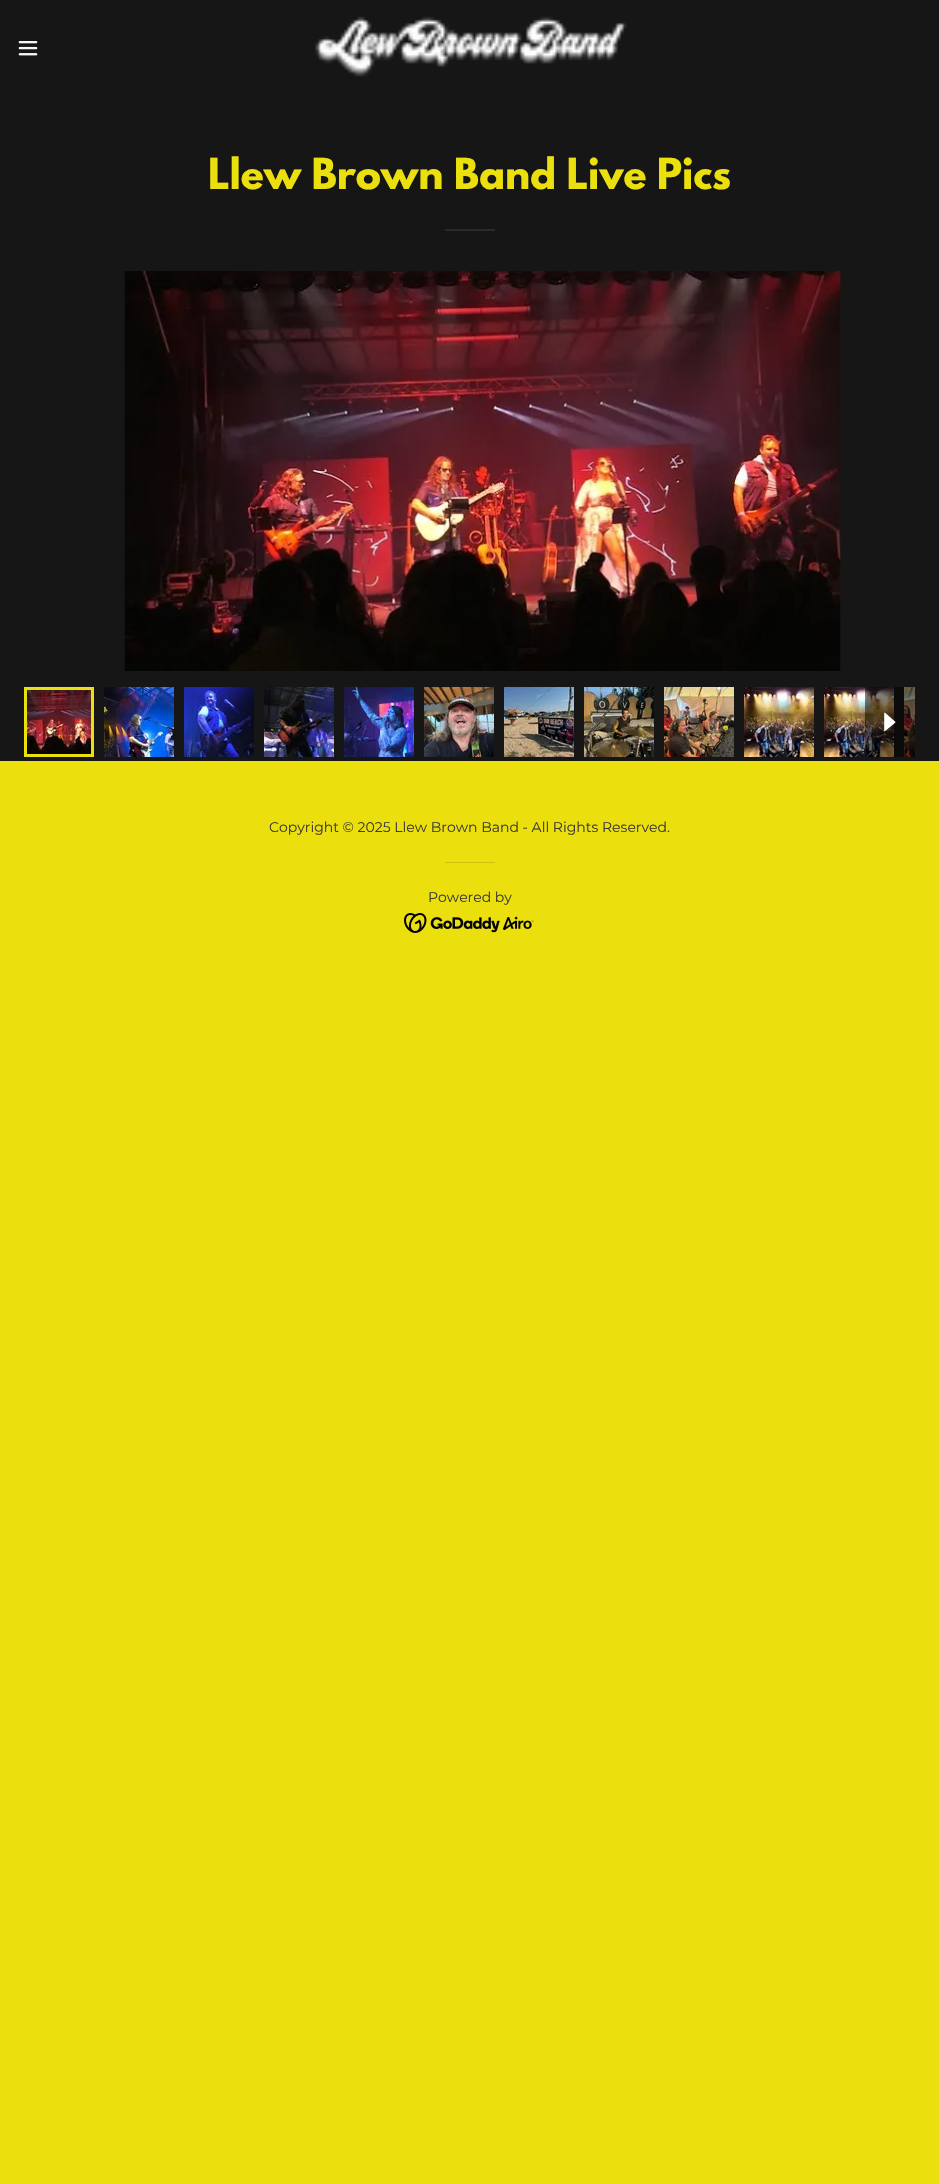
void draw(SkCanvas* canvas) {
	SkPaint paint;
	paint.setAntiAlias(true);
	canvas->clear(0xffebdf0e);
	paint.setColor(0xff161616);
	canvas->drawRect(SkRect::MakeXYWH(0, 0, 939, 761), paint);
	canvas->drawImageRect(SkImages::DeferredFromEncodedData(SkData::MakeFromFileName("img1.png")), SkRect::MakeXYWH(18, 41, 20, 15), SkSamplingOptions());
	canvas->drawImageRect(SkImages::DeferredFromEncodedData(SkData::MakeFromFileName("img2.png")), SkRect::MakeXYWH(315, 16, 312, 61), SkSamplingOptions());
	SkFont f1(fontMgr->matchFamilyStyle("League Spartan", SkFontStyle::Bold()), 38);
	f1.setSubpixel(true);
	paint.setColor(0xffebdf0e);
	canvas->drawString("Llew Brown Band Live Pics", 208, 189, f1, paint);
	paint.setColor(0xff2a2a2a);
	canvas->drawRect(SkRect::MakeXYWH(445, 229, 50, 2), paint);
	canvas->drawImageRect(SkImages::DeferredFromEncodedData(SkData::MakeFromFileName("img3.png")), SkRect::MakeXYWH(124, 271, 717, 400), SkSamplingOptions());
	canvas->drawImageRect(SkImages::DeferredFromEncodedData(SkData::MakeFromFileName("img4.png")), SkRect::MakeXYWH(27, 690, 64, 64), SkSamplingOptions());
	paint.setStroke(true);
	paint.setStrokeWidth(3);
	paint.setColor(0xffebdf0e);
	canvas->drawRect(SkRect::MakeXYWH(25.5, 688.5, 67, 67), paint);
	canvas->drawImageRect(SkImages::DeferredFromEncodedData(SkData::MakeFromFileName("img5.png")), SkRect::MakeXYWH(104, 687, 70, 70), SkSamplingOptions());
	canvas->drawImageRect(SkImages::DeferredFromEncodedData(SkData::MakeFromFileName("img6.png")), SkRect::MakeXYWH(184, 687, 70, 70), SkSamplingOptions());
	canvas->drawImageRect(SkImages::DeferredFromEncodedData(SkData::MakeFromFileName("img7.png")), SkRect::MakeXYWH(264, 687, 70, 70), SkSamplingOptions());
	canvas->drawImageRect(SkImages::DeferredFromEncodedData(SkData::MakeFromFileName("img8.png")), SkRect::MakeXYWH(344, 687, 70, 70), SkSamplingOptions());
	canvas->drawImageRect(SkImages::DeferredFromEncodedData(SkData::MakeFromFileName("img9.png")), SkRect::MakeXYWH(424, 687, 70, 70), SkSamplingOptions());
	canvas->drawImageRect(SkImages::DeferredFromEncodedData(SkData::MakeFromFileName("img10.png")), SkRect::MakeXYWH(504, 687, 70, 70), SkSamplingOptions());
	canvas->drawImageRect(SkImages::DeferredFromEncodedData(SkData::MakeFromFileName("img11.png")), SkRect::MakeXYWH(584, 687, 70, 70), SkSamplingOptions());
	canvas->drawImageRect(SkImages::DeferredFromEncodedData(SkData::MakeFromFileName("img12.png")), SkRect::MakeXYWH(664, 687, 70, 70), SkSamplingOptions());
	canvas->drawImageRect(SkImages::DeferredFromEncodedData(SkData::MakeFromFileName("img13.png")), SkRect::MakeXYWH(744, 687, 70, 70), SkSamplingOptions());
	canvas->drawImageRect(SkImages::DeferredFromEncodedData(SkData::MakeFromFileName("img13.png")), SkRect::MakeXYWH(824, 687, 70, 70), SkSamplingOptions());
	canvas->drawImageRect(SkImages::DeferredFromEncodedData(SkData::MakeFromFileName("img14.png")), SkRect::MakeXYWH(904, 687, 11, 70), SkSamplingOptions());
	paint.setStroke(false);
	paint.setColor(0x80000000);
	canvas->drawRect(SkRect::MakeXYWH(865, 687, 50, 70), paint);
	canvas->drawImageRect(SkImages::DeferredFromEncodedData(SkData::MakeFromFileName("img15.png")), SkRect::MakeXYWH(884, 712, 12, 20), SkSamplingOptions());
	SkFont f2(fontMgr->matchFamilyStyle("Montserrat", SkFontStyle::Normal()), 14);
	f2.setSubpixel(true);
	paint.setColor(0xff3e3c31);
	canvas->drawString("Copyright © 2025 Llew Brown Band - All Rights Reserved.", 269, 832, f2, paint);
	paint.setColor(0xffcdc30b);
	canvas->drawRect(SkRect::MakeXYWH(445, 862, 50, 1), paint);
	paint.setColor(0xff3e3c31);
	canvas->drawString("Powered by", 428, 902, f2, paint);
	canvas->drawImageRect(SkImages::DeferredFromEncodedData(SkData::MakeFromFileName("img16.png")), SkRect::MakeXYWH(404, 913, 130, 20), SkSamplingOptions());
}
